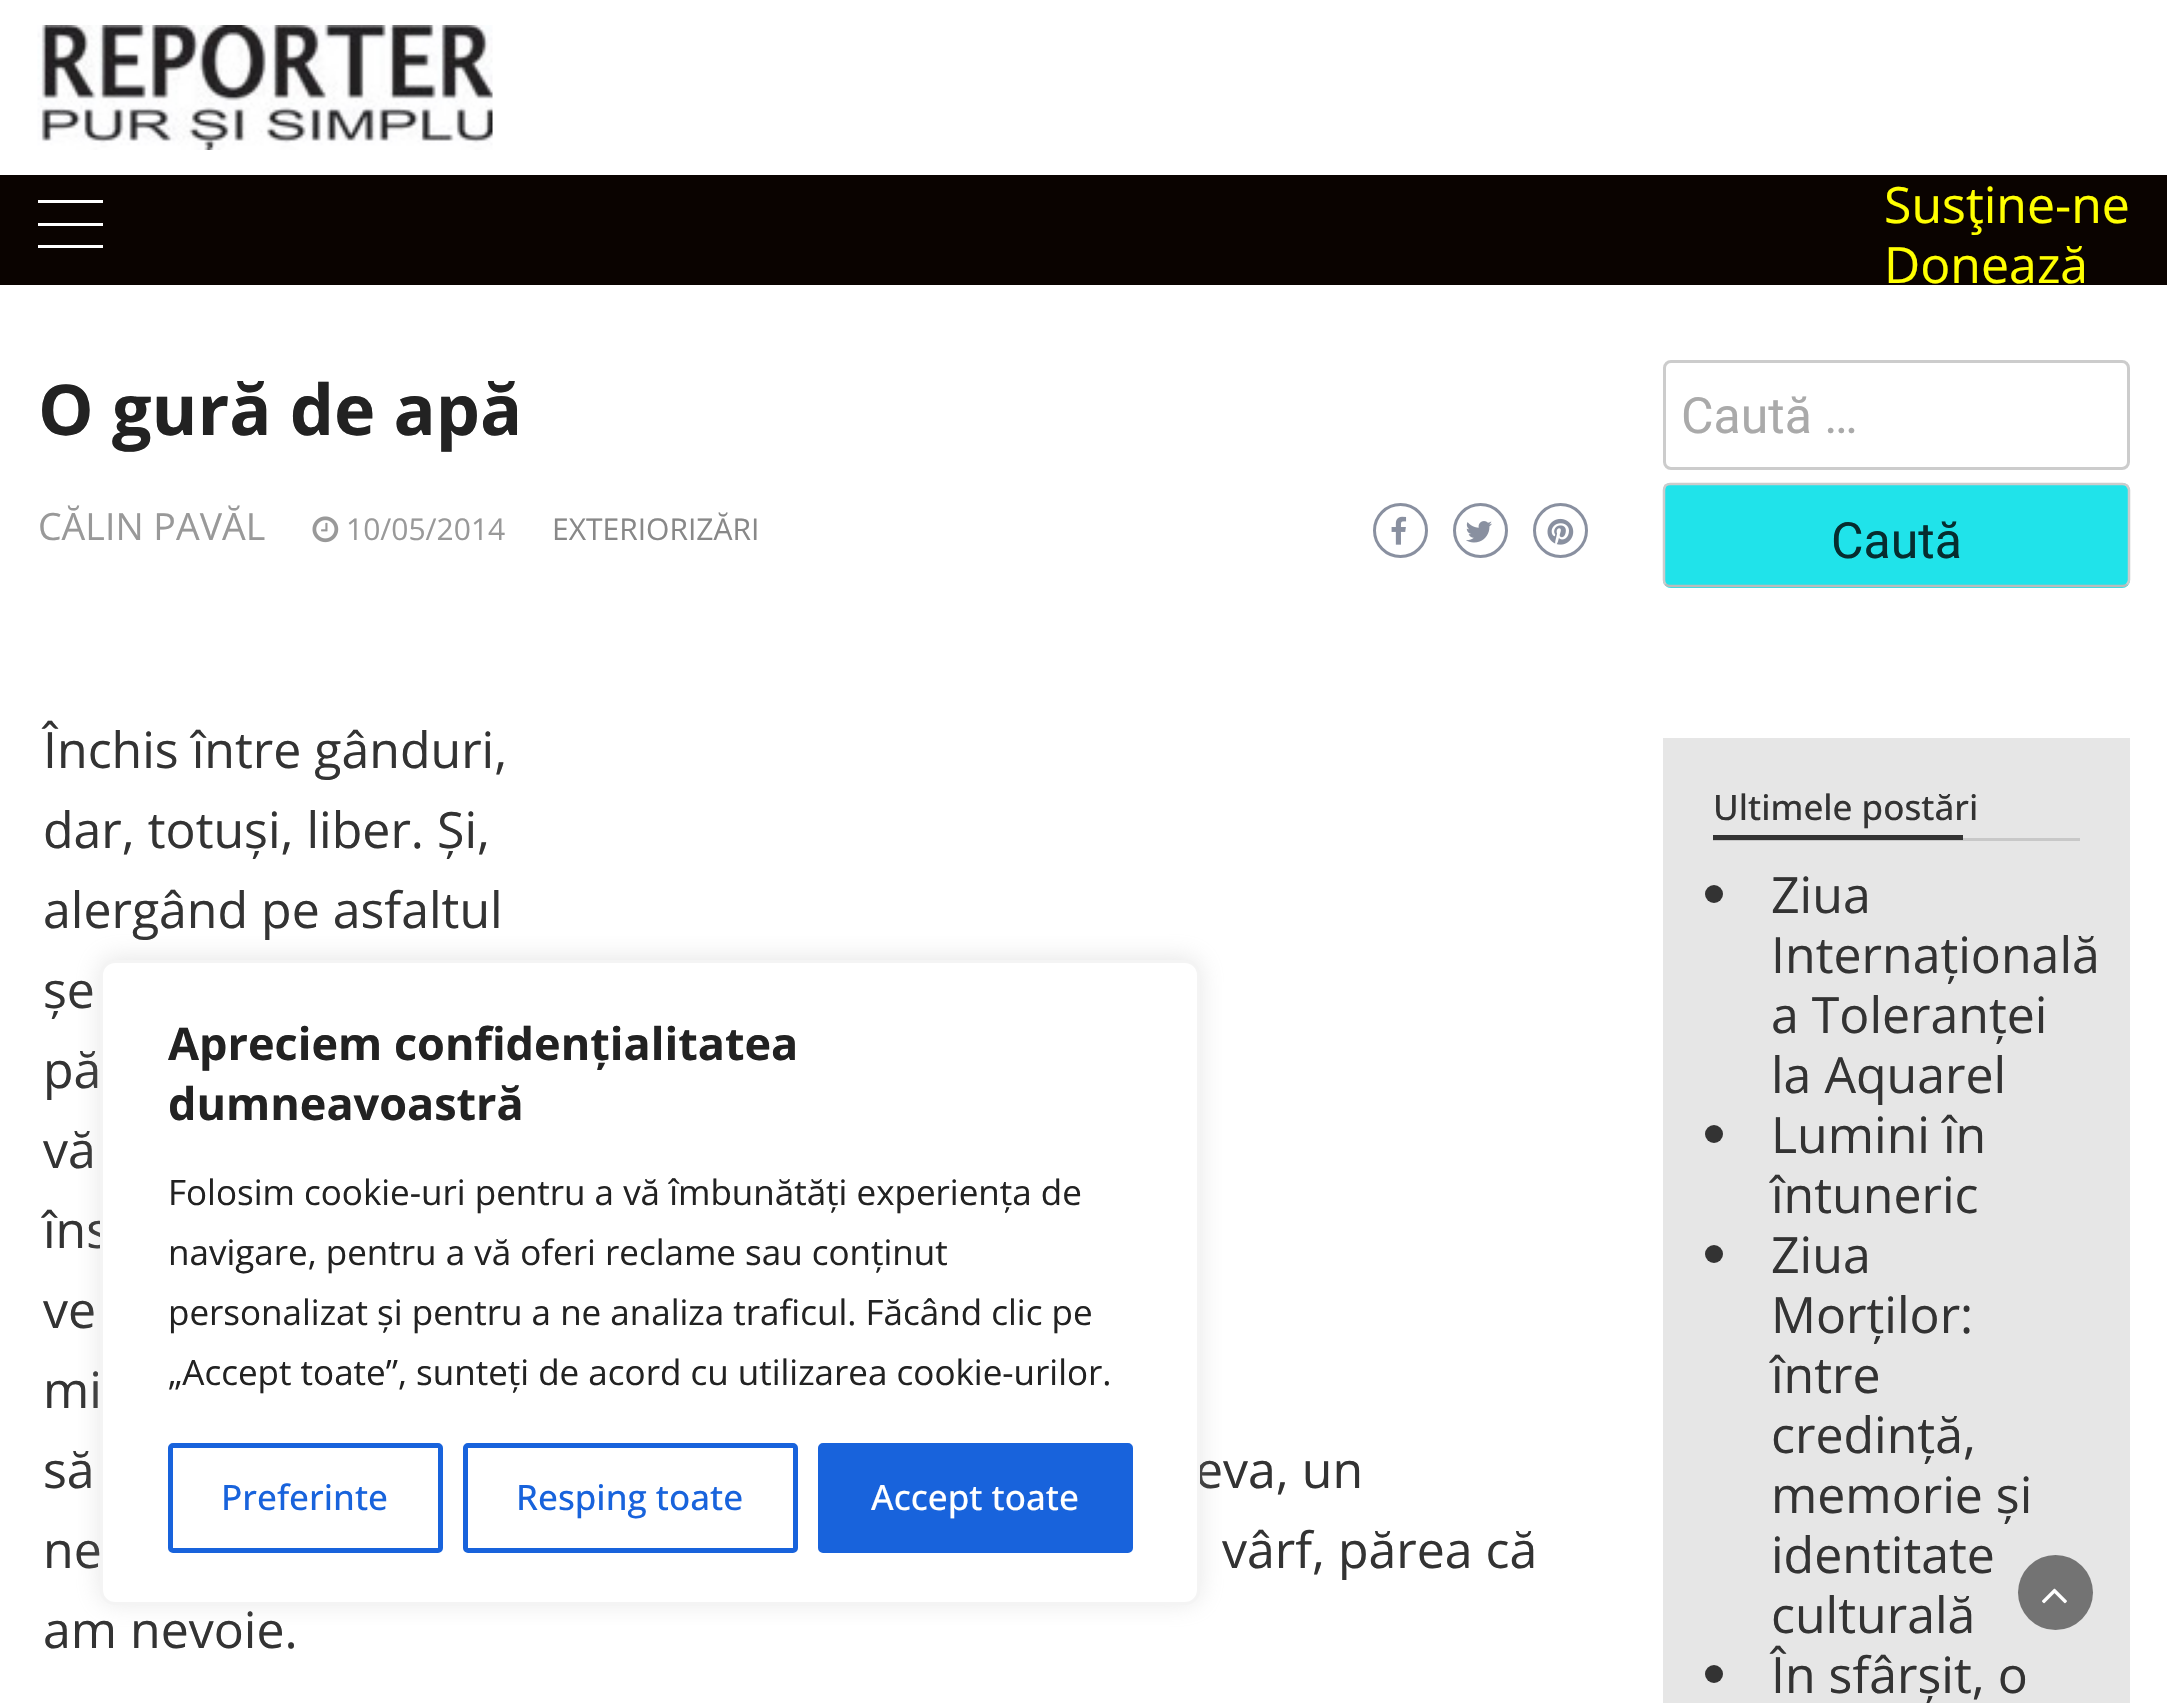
void draw(SkCanvas* canvas) {
	SkPaint paint;
	paint.setAntiAlias(true);
	auto svgPath = [&](const char* data, bool evenOdd = false) {
		SkPath result = *SkParsePath::FromSVGString(data);
		if (evenOdd) result.setFillType(SkPathFillType::kEvenOdd);
		return result;
	};
	canvas->clear(0xffffffff);
	canvas->drawImageRect(SkImages::DeferredFromEncodedData(SkData::MakeFromFileName("img1.png")), SkRect::MakeXYWH(37, 25, 456, 125), SkSamplingOptions());
	paint.setColor(0xff0a0300);
	canvas->drawRect(SkRect::MakeXYWH(0, 175, 2167, 110), paint);
	paint.setColor(0xffffffff);
	canvas->drawRect(SkRect::MakeXYWH(38, 200, 65, 3), paint);
	canvas->drawRect(SkRect::MakeXYWH(38, 223, 65, 3), paint);
	canvas->drawRect(SkRect::MakeXYWH(38, 245, 65, 3), paint);
	SkFont f1(fontMgr->matchFamilyStyle("Open Sans", SkFontStyle::Normal()), 50);
	f1.setSubpixel(true);
	paint.setColor(0xffffff00);
	canvas->drawString("Susţine-ne", 1884, 223, f1, paint);
	canvas->drawString("Donează", 1884, 283, f1, paint);
	SkFont f2(fontMgr->matchFamilyStyle("Open Sans", SkFontStyle::Bold()), 70);
	f2.setSubpixel(true);
	paint.setColor(0xff222222);
	canvas->drawString("O gură de apă", 38, 435, f2, paint);
	SkFont f3(fontMgr->matchFamilyStyle("Open Sans", SkFontStyle::Normal()), 37.5);
	f3.setSubpixel(true);
	paint.setColor(0xff999999);
	canvas->drawString("CĂLIN PAVĂL", 38, 540, f3, paint);
	canvas->drawImageRect(SkImages::DeferredFromEncodedData(SkData::MakeFromFileName("img2.png")), SkRect::MakeXYWH(312, 516, 27, 27), SkSamplingOptions());
	SkFont f4(fontMgr->matchFamilyStyle("Open Sans", SkFontStyle::Normal()), 30);
	f4.setSubpixel(true);
	canvas->drawString("10/05/2014", 346, 540, f4, paint);
	paint.setColor(0xff888888);
	canvas->drawString("EXTERIORIZĂRI", 552, 540, f4, paint);
	paint.setStroke(true);
	paint.setStrokeWidth(3);
	paint.setColor(0xff8990a0);
	canvas->drawCircle(1400.5, 530.5, 26, paint);
	canvas->drawImageRect(SkImages::DeferredFromEncodedData(SkData::MakeFromFileName("img3.png")), SkRect::MakeXYWH(1391, 516, 16, 29), SkSamplingOptions());
	canvas->drawCircle(1480.5, 530.5, 26, paint);
	canvas->drawImageRect(SkImages::DeferredFromEncodedData(SkData::MakeFromFileName("img4.png")), SkRect::MakeXYWH(1466, 521, 26, 22), SkSamplingOptions());
	canvas->drawCircle(1560.5, 530.5, 26, paint);
	canvas->drawImageRect(SkImages::DeferredFromEncodedData(SkData::MakeFromFileName("img5.png")), SkRect::MakeXYWH(1547, 518, 27, 27), SkSamplingOptions());
	paint.setStroke(false);
	paint.setColor(0xff333333);
	canvas->drawString("Închis între gânduri,", 43, 768, f1, paint);
	canvas->drawString("dar, totuși, liber. Și,", 43, 848, f1, paint);
	canvas->drawString("alergând pe asfaltul", 43, 928, f1, paint);
	canvas->drawString("șe", 43, 1008, f1, paint);
	canvas->drawString("pă", 43, 1088, f1, paint);
	canvas->drawString("vă", 43, 1168, f1, paint);
	canvas->drawString("îns", 43, 1248, f1, paint);
	canvas->drawString("ve", 43, 1328, f1, paint);
	canvas->drawString("mi", 43, 1408, f1, paint);
	canvas->drawString("să", 43, 1488, f1, paint);
	canvas->drawString("eva, un", 1195, 1488, f1, paint);
	canvas->drawString("ne", 43, 1568, f1, paint);
	canvas->drawString("vârf, părea că", 1222, 1568, f1, paint);
	canvas->drawString("am nevoie.", 43, 1648, f1, paint);
	paint.setStroke(true);
	paint.setColor(0xffcccccc);
	canvas->drawRoundRect(SkRect::MakeXYWH(1664.5, 361.5, 464, 107), 6.5, 6.5, paint);
	SkFont f5(fontMgr->matchFamilyStyle("Roboto", SkFontStyle::Normal()), 50);
	f5.setSubpixel(true);
	paint.setStroke(false);
	paint.setColor(0xffaaaaaa);
	canvas->drawString("Caută …", 1681, 433, f5, paint);
	paint.setColor(0xff20e3ea);
	canvas->drawRoundRect(SkRect::MakeXYWH(1663, 483, 467, 105), 8, 8, paint);
	paint.setStroke(true);
	paint.setStrokeWidth(2.5);
	paint.setColor(0xffbbbbbb);
	canvas->drawPath(svgPath("M2127 584.5C2125.5 585.5 2124 586 2122.5 586H1670C1668.5 586 1667 585.5 1665.5 584.5"), paint);
	paint.setColor(0xffcccccc);
	canvas->drawPath(svgPath("M1665.5 584.5C1664.5 583 1664 581.5 1664 580V490C1664 488.5 1664.5 487 1665.5 485.5C1667 484.5 1668.5 484 1670 484H2122.5C2124 484 2125.5 484.5 2127 485.5C2128 487 2129 488.5 2129 490V580C2129 581.5 2128 583 2127 584.5"), paint);
	paint.setStroke(false);
	paint.setColor(0xff062d2f);
	canvas->drawString("Caută", 1831, 558, f5, paint);
	paint.setColor(0xffe6e6e6);
	canvas->drawRect(SkRect::MakeXYWH(1663, 738, 467, 965), paint);
	paint.setColor(0xffc8c8c8);
	canvas->drawRect(SkRect::MakeXYWH(1713, 838, 367, 3), paint);
	SkFont f6(fontMgr->matchFamilyStyle("Open Sans", SkFontStyle(500, SkFontStyle::kNormal_Width, SkFontStyle::kUpright_Slant)), 35);
	f6.setSubpixel(true);
	paint.setColor(0xff333333);
	canvas->drawString("Ultimele postări", 1713, 820, f6, paint);
	canvas->drawRect(SkRect::MakeXYWH(1713, 835, 250, 5), paint);
	canvas->drawCircle(1714, 894, 9, paint);
	canvas->drawString("Ziua", 1771, 913, f1, paint);
	canvas->drawString("Internațională", 1771, 973, f1, paint);
	canvas->drawString("a Toleranței", 1771, 1033, f1, paint);
	canvas->drawString("la Aquarel", 1771, 1093, f1, paint);
	canvas->drawCircle(1714, 1134, 9, paint);
	canvas->drawString("Lumini în", 1771, 1153, f1, paint);
	canvas->drawString("întuneric", 1771, 1213, f1, paint);
	canvas->drawCircle(1714, 1254, 9, paint);
	canvas->drawString("Ziua", 1771, 1273, f1, paint);
	canvas->drawString("Morților:", 1771, 1333, f1, paint);
	canvas->drawString("între", 1771, 1393, f1, paint);
	canvas->drawString("credință,", 1771, 1453, f1, paint);
	canvas->drawString("memorie și", 1771, 1513, f1, paint);
	canvas->drawString("identitate", 1771, 1573, f1, paint);
	canvas->drawString("culturală", 1771, 1633, f1, paint);
	canvas->drawCircle(1714, 1674, 9, paint);
	canvas->drawString("În sfârșit, o", 1771, 1693, f1, paint);
	paint.setColor(0x4dacabab);
	paint.setMaskFilter(SkMaskFilter::MakeBlur(kNormal_SkBlurStyle, 12.5));
	canvas->drawRoundRect(SkRect::MakeXYWH(100, 958, 1100, 645), 15, 15, paint);
	paint.setMaskFilter(nullptr);
	paint.setColor(0xffffffff);
	canvas->drawRoundRect(SkRect::MakeXYWH(101.5, 961.5, 1097, 642), 13.5, 13.5, paint);
	paint.setStroke(true);
	paint.setStrokeWidth(3);
	paint.setColor(0xfff4f4f4);
	canvas->drawRoundRect(SkRect::MakeXYWH(101.5, 961.5, 1097, 642), 13.5, 13.5, paint);
	SkFont f7(fontMgr->matchFamilyStyle("Open Sans", SkFontStyle::Bold()), 45);
	f7.setSubpixel(true);
	paint.setStroke(false);
	paint.setColor(0xff222222);
	canvas->drawString("Apreciem confidențialitatea", 168, 1060, f7, paint);
	canvas->drawString("dumneavoastră", 168, 1120, f7, paint);
	SkFont f8(fontMgr->matchFamilyStyle("Open Sans", SkFontStyle::Normal()), 35);
	f8.setSubpixel(true);
	canvas->drawString("Folosim cookie-uri pentru a vă îmbunătăți experiența de", 168, 1205, f8, paint);
	canvas->drawString("navigare, pentru a vă oferi reclame sau conținut", 168, 1265, f8, paint);
	canvas->drawString("personalizat și pentru a ne analiza traficul. Făcând clic pe", 168, 1325, f8, paint);
	canvas->drawString("„Accept toate”, sunteți de acord cu utilizarea cookie-urilor.", 168, 1385, f8, paint);
	paint.setStroke(true);
	paint.setStrokeWidth(5);
	paint.setColor(0xff1863dc);
	canvas->drawRoundRect(SkRect::MakeXYWH(170.5, 1445.5, 270, 105), 2.5, 2.5, paint);
	paint.setStroke(false);
	canvas->drawString("Preferinte", 221, 1510, f6, paint);
	paint.setStroke(true);
	canvas->drawRoundRect(SkRect::MakeXYWH(465.5, 1445.5, 330, 105), 2.5, 2.5, paint);
	paint.setStroke(false);
	canvas->drawString("Resping toate", 516, 1510, f6, paint);
	canvas->drawRoundRect(SkRect::MakeXYWH(820.5, 1445.5, 310, 105), 2.5, 2.5, paint);
	paint.setStroke(true);
	canvas->drawRoundRect(SkRect::MakeXYWH(820.5, 1445.5, 310, 105), 2.5, 2.5, paint);
	paint.setStroke(false);
	paint.setColor(0xffffffff);
	canvas->drawString("Accept toate", 871, 1510, f6, paint);
	paint.setColor(0xff737373);
	canvas->drawCircle(2055.5, 1592.5, 37.5, paint);
	canvas->drawImageRect(SkImages::DeferredFromEncodedData(SkData::MakeFromFileName("img6.png")), SkRect::MakeXYWH(2042, 1588, 25, 16), SkSamplingOptions());
}
